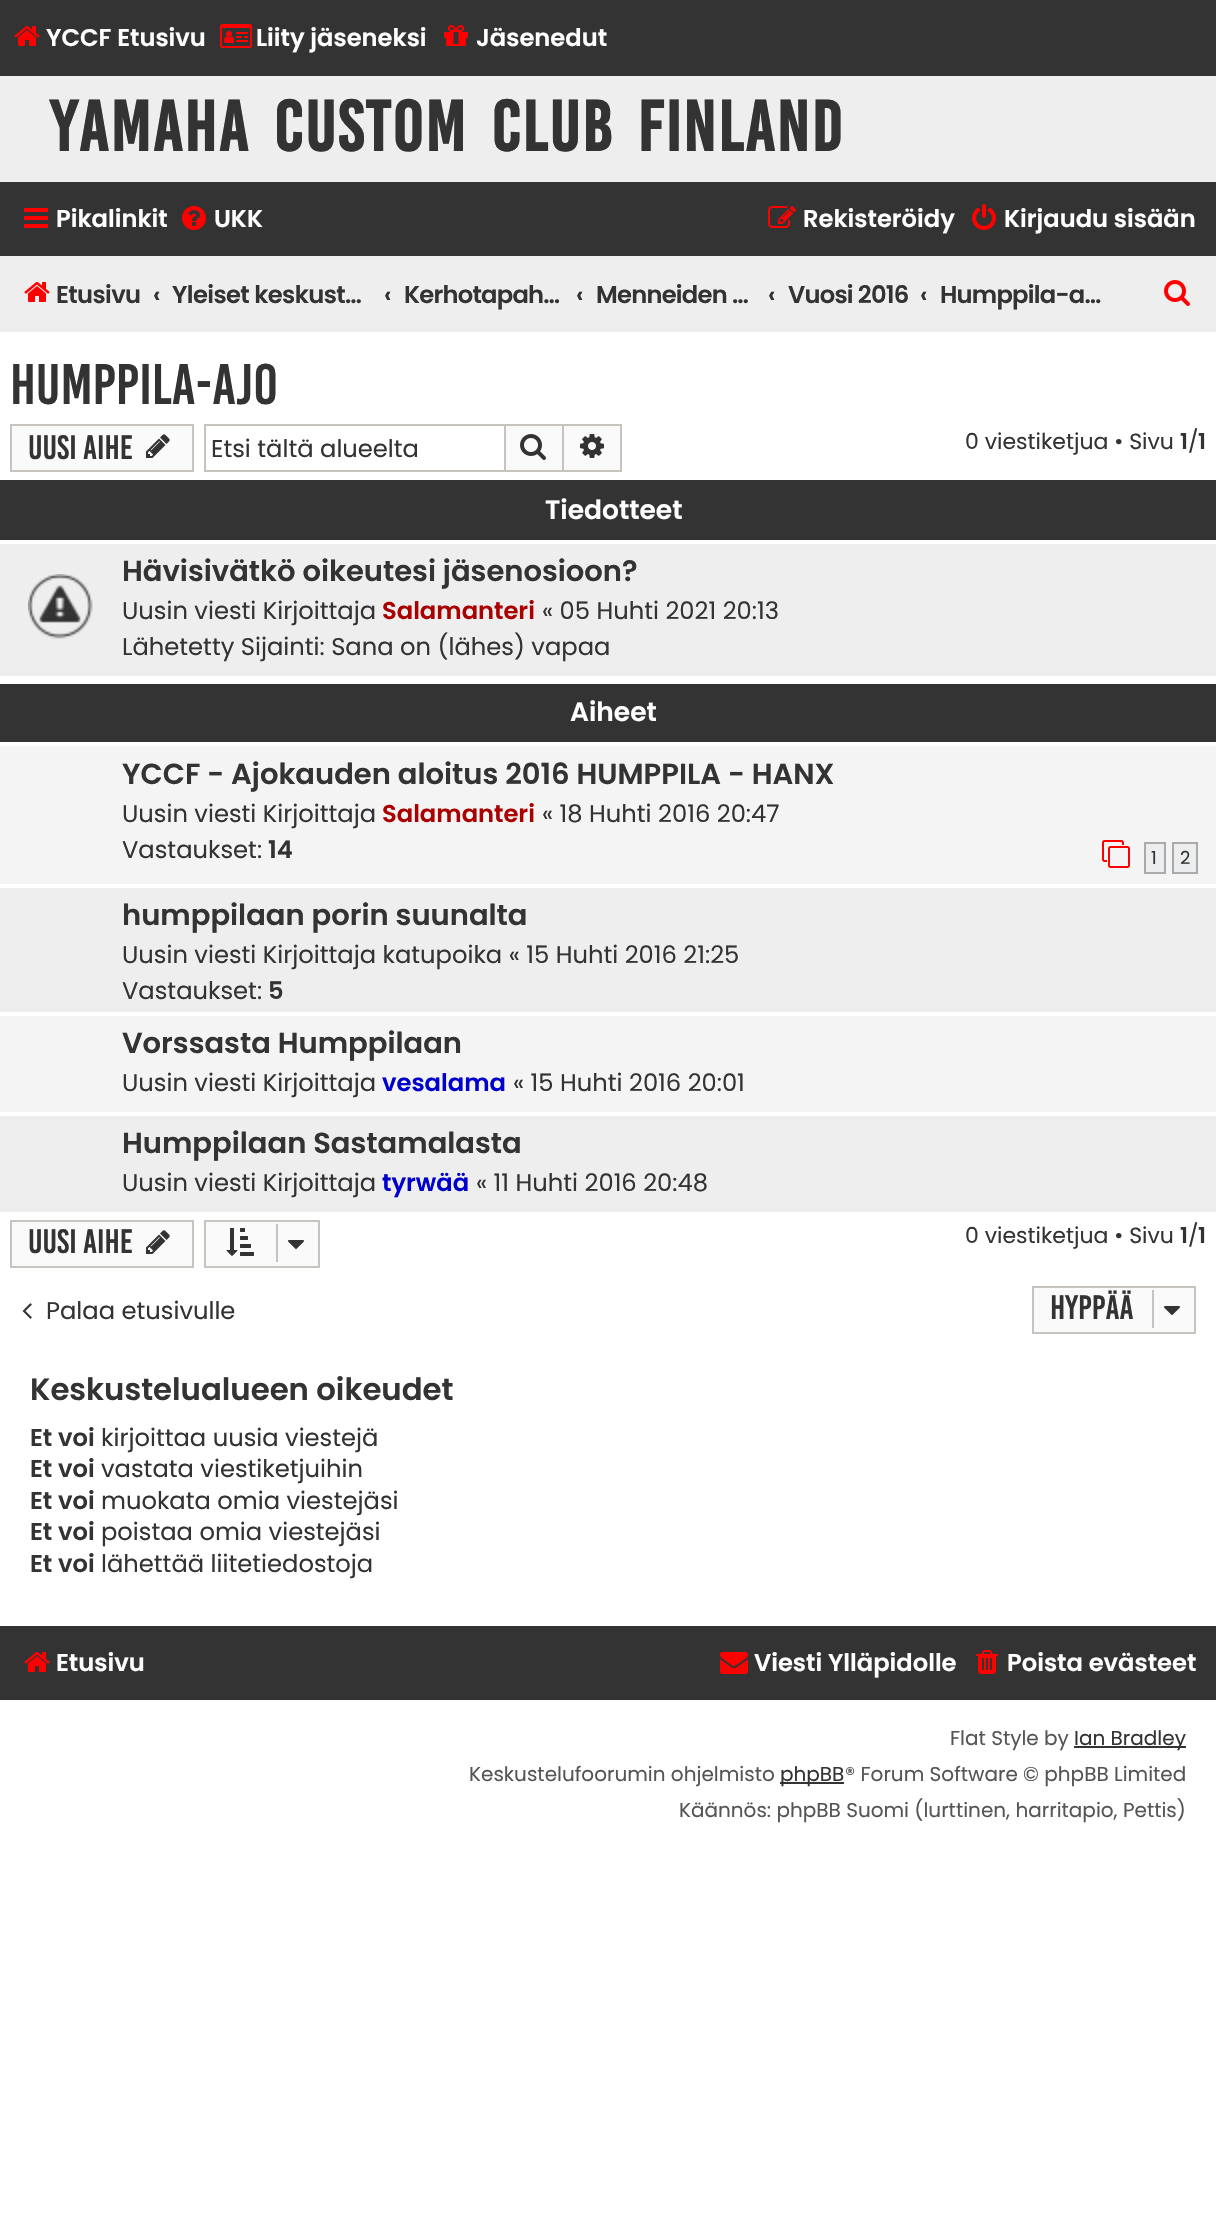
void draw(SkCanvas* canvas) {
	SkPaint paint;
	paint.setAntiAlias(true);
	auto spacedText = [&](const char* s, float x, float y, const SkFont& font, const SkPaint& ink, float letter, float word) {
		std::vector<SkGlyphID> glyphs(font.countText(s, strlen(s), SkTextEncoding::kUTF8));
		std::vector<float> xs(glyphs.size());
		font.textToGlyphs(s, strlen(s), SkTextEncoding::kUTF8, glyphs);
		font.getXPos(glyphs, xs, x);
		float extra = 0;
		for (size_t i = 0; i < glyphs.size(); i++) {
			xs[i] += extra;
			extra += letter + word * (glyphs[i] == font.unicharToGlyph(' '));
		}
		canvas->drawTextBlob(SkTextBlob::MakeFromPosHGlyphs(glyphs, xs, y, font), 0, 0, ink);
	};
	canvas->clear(0xffffffff);
	paint.setColor(0xff333333);
	canvas->drawRect(SkRect::MakeXYWH(0, 0, 1216, 76), paint);
	canvas->drawImageRect(SkImages::DeferredFromEncodedData(SkData::MakeFromFileName("img1.png")), SkRect::MakeXYWH(14, 26, 26, 20), SkSamplingOptions());
	SkFont f1(fontMgr->matchFamilyStyle("Poppins", SkFontStyle(600, SkFontStyle::kNormal_Width, SkFontStyle::kUpright_Slant)), 24.2);
	f1.setSubpixel(true);
	paint.setColor(0xffffffff);
	canvas->drawString("YCCF Etusivu", 46, 46, f1, paint);
	canvas->drawImageRect(SkImages::DeferredFromEncodedData(SkData::MakeFromFileName("img2.png")), SkRect::MakeXYWH(220, 24, 32, 24), SkSamplingOptions());
	canvas->drawString("Liity jäseneksi", 256, 46, f1, paint);
	canvas->drawImageRect(SkImages::DeferredFromEncodedData(SkData::MakeFromFileName("img3.png")), SkRect::MakeXYWH(444, 25, 24, 21), SkSamplingOptions());
	canvas->drawString("Jäsenedut", 476, 46, f1, paint);
	paint.setColor(0xffeeeeee);
	canvas->drawRect(SkRect::MakeXYWH(0, 76, 1216, 106), paint);
	SkFont f2(fontMgr->matchFamilyStyle("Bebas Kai", SkFontStyle::Bold()), 55);
	f2.setSubpixel(true);
	paint.setColor(0xff333333);
	spacedText("Yamaha Custom Club Finland", 50, 151, f2, paint, 2, 8);
	canvas->drawRect(SkRect::MakeXYWH(0, 182, 1216, 74), paint);
	canvas->drawImageRect(SkImages::DeferredFromEncodedData(SkData::MakeFromFileName("img4.png")), SkRect::MakeXYWH(24, 208, 24, 20), SkSamplingOptions());
	paint.setColor(0xffffffff);
	canvas->drawString("Pikalinkit", 56, 227, f1, paint);
	canvas->drawImageRect(SkImages::DeferredFromEncodedData(SkData::MakeFromFileName("img5.png")), SkRect::MakeXYWH(182, 206, 24, 24), SkSamplingOptions());
	canvas->drawString("UKK", 214, 227, f1, paint);
	canvas->drawImageRect(SkImages::DeferredFromEncodedData(SkData::MakeFromFileName("img6.png")), SkRect::MakeXYWH(768, 206, 28, 22), SkSamplingOptions());
	canvas->drawString("Rekisteröidy", 803, 227, f1, paint);
	canvas->drawImageRect(SkImages::DeferredFromEncodedData(SkData::MakeFromFileName("img7.png")), SkRect::MakeXYWH(972, 204, 24, 26), SkSamplingOptions());
	canvas->drawString("Kirjaudu sisään", 1004, 227, f1, paint);
	paint.setColor(0xffeeeeee);
	canvas->drawRect(SkRect::MakeXYWH(0, 256, 1216, 76), paint);
	canvas->drawImageRect(SkImages::DeferredFromEncodedData(SkData::MakeFromFileName("img8.png")), SkRect::MakeXYWH(24, 282, 26, 20), SkSamplingOptions());
	paint.setColor(0xff333333);
	spacedText("Etusivu", 56, 303, f1, paint, -0.6, 0);
	canvas->drawString("‹", 153, 303, f1, paint);
	spacedText("Yleiset keskust…", 172, 303, f1, paint, -0.6, 0);
	canvas->drawString("‹", 384, 303, f1, paint);
	spacedText("Kerhotapah…", 404, 303, f1, paint, -0.75, 0);
	canvas->drawString("‹", 576, 303, f1, paint);
	spacedText("Menneiden …", 596, 303, f1, paint, -0.75, 0);
	canvas->drawString("‹", 768, 303, f1, paint);
	spacedText("Vuosi 2016", 788, 303, f1, paint, -0.75, 0);
	canvas->drawString("‹", 920, 303, f1, paint);
	spacedText("Humppila-a…", 940, 303, f1, paint, -0.75, 0);
	canvas->drawImageRect(SkImages::DeferredFromEncodedData(SkData::MakeFromFileName("img9.png")), SkRect::MakeXYWH(1164, 280, 26, 26), SkSamplingOptions());
	SkFont f3(fontMgr->matchFamilyStyle("Bebas Kai", SkFontStyle::Normal()), 44);
	f3.setSubpixel(true);
	canvas->drawString("Humppila-ajo", 10, 404, f3, paint);
	paint.setColor(0xfffafafa);
	canvas->drawRect(SkRect::MakeXYWH(11, 425, 182, 46), paint);
	paint.setStroke(true);
	paint.setStrokeWidth(2);
	paint.setColor(0xffc7c3bf);
	canvas->drawRect(SkRect::MakeXYWH(11, 425, 182, 46), paint);
	SkFont f4(fontMgr->matchFamilyStyle("Bebas Kai", SkFontStyle::Normal()), 26);
	f4.setSubpixel(true);
	paint.setStroke(false);
	paint.setColor(0xff333333);
	canvas->drawString("Uusi Aihe", 28, 459, f4, paint);
	canvas->drawImageRect(SkImages::DeferredFromEncodedData(SkData::MakeFromFileName("img10.png")), SkRect::MakeXYWH(146, 434, 24, 24), SkSamplingOptions());
	paint.setColor(0xffc7c3bf);
	canvas->drawRect(SkRect::MakeXYWH(204, 424, 300, 2), paint);
	canvas->drawRect(SkRect::MakeXYWH(204, 470, 300, 2), paint);
	canvas->drawRect(SkRect::MakeXYWH(204, 424, 2, 48), paint);
	SkFont f5(fontMgr->matchFamilyStyle("Poppins", SkFontStyle::Normal()), 24.2);
	f5.setSubpixel(true);
	paint.setColor(0xff333333);
	canvas->drawString("Etsi tältä alueelta", 211, 457, f5, paint);
	paint.setColor(0xfffafafa);
	canvas->drawRect(SkRect::MakeXYWH(505, 425, 58, 46), paint);
	paint.setStroke(true);
	paint.setColor(0xffc7c3bf);
	canvas->drawRect(SkRect::MakeXYWH(505, 425, 58, 46), paint);
	canvas->drawImageRect(SkImages::DeferredFromEncodedData(SkData::MakeFromFileName("img11.png")), SkRect::MakeXYWH(520, 434, 26, 26), SkSamplingOptions());
	paint.setStroke(false);
	paint.setColor(0xfffafafa);
	canvas->drawRect(SkRect::MakeXYWH(564, 426, 56, 44), paint);
	paint.setColor(0xffc7c3bf);
	canvas->drawRect(SkRect::MakeXYWH(564, 424, 58, 2), paint);
	canvas->drawRect(SkRect::MakeXYWH(620, 424, 2, 48), paint);
	canvas->drawRect(SkRect::MakeXYWH(564, 470, 58, 2), paint);
	canvas->drawImageRect(SkImages::DeferredFromEncodedData(SkData::MakeFromFileName("img12.png")), SkRect::MakeXYWH(580, 434, 24, 24), SkSamplingOptions());
	SkFont f6(fontMgr->matchFamilyStyle("Poppins", SkFontStyle::Normal()), 22);
	f6.setSubpixel(true);
	paint.setColor(0xff333333);
	canvas->drawString("0 viestiketjua • Sivu", 965, 449, f6, paint);
	SkFont f7(fontMgr->matchFamilyStyle("Poppins", SkFontStyle(600, SkFontStyle::kNormal_Width, SkFontStyle::kUpright_Slant)), 22);
	f7.setSubpixel(true);
	canvas->drawString("1", 1180, 449, f7, paint);
	canvas->drawString("/", 1188, 449, f6, paint);
	canvas->drawString("1", 1198, 449, f7, paint);
	canvas->drawRect(SkRect::MakeXYWH(0, 480, 1216, 60), paint);
	SkFont f8(fontMgr->matchFamilyStyle("Poppins", SkFontStyle(600, SkFontStyle::kNormal_Width, SkFontStyle::kUpright_Slant)), 26.5);
	f8.setSubpixel(true);
	paint.setColor(0xffffffff);
	canvas->drawString("Tiedotteet", 545, 519, f8, paint);
	paint.setColor(0xffeeeeee);
	canvas->drawRect(SkRect::MakeXYWH(0, 544, 1216, 132), paint);
	canvas->drawImageRect(SkImages::DeferredFromEncodedData(SkData::MakeFromFileName("img13.png")), SkRect::MakeXYWH(28, 574, 65, 65), SkSamplingOptions());
	SkFont f9(fontMgr->matchFamilyStyle("Poppins", SkFontStyle(600, SkFontStyle::kNormal_Width, SkFontStyle::kUpright_Slant)), 29);
	f9.setSubpixel(true);
	paint.setColor(0xff333333);
	canvas->drawString("Hävisivätkö oikeutesi jäsenosioon?", 122, 581, f9, paint);
	canvas->drawString("Uusin viesti Kirjoittaja", 122, 619, f5, paint);
	paint.setColor(0xffaa0000);
	canvas->drawString("Salamanteri", 382, 619, f1, paint);
	paint.setColor(0xff333333);
	canvas->drawString("« 05 Huhti 2021 20:13", 542, 619, f5, paint);
	canvas->drawString("Lähetetty Sijainti: Sana on (lähes) vapaa", 122, 655, f5, paint);
	canvas->drawRect(SkRect::MakeXYWH(0, 684, 1216, 58), paint);
	paint.setColor(0xffffffff);
	canvas->drawString("Aiheet", 570, 721, f8, paint);
	paint.setColor(0xfff4f4f4);
	canvas->drawRect(SkRect::MakeXYWH(0, 746, 1216, 138), paint);
	paint.setColor(0xff333333);
	canvas->drawString("YCCF - Ajokauden aloitus 2016 HUMPPILA - HANX", 122, 784, f9, paint);
	canvas->drawString("Uusin viesti Kirjoittaja", 122, 822, f5, paint);
	paint.setColor(0xffaa0000);
	canvas->drawString("Salamanteri", 382, 822, f1, paint);
	paint.setColor(0xff333333);
	canvas->drawString("« 18 Huhti 2016 20:47", 542, 822, f5, paint);
	canvas->drawString("Vastaukset:", 122, 858, f5, paint);
	canvas->drawString("14", 268, 858, f1, paint);
	canvas->drawImageRect(SkImages::DeferredFromEncodedData(SkData::MakeFromFileName("img14.png")), SkRect::MakeXYWH(1102, 840, 28, 28), SkSamplingOptions());
	paint.setColor(0xffecedee);
	canvas->drawRect(SkRect::MakeXYWH(1145, 843, 20, 30), paint);
	paint.setStroke(true);
	paint.setColor(0xffaaaaaa);
	canvas->drawRect(SkRect::MakeXYWH(1145, 843, 20, 30), paint);
	SkFont f10(fontMgr->matchFamilyStyle("Poppins", SkFontStyle::Normal()), 18);
	f10.setSubpixel(true);
	paint.setStroke(false);
	paint.setColor(0xff333333);
	canvas->drawString("1", 1151, 864, f10, paint);
	paint.setColor(0xffecedee);
	canvas->drawRect(SkRect::MakeXYWH(1173, 843, 24, 30), paint);
	paint.setStroke(true);
	paint.setColor(0xffaaaaaa);
	canvas->drawRect(SkRect::MakeXYWH(1173, 843, 24, 30), paint);
	paint.setStroke(false);
	paint.setColor(0xff333333);
	canvas->drawString("2", 1180, 864, f10, paint);
	paint.setColor(0xffeeeeee);
	canvas->drawRect(SkRect::MakeXYWH(0, 888, 1216, 124), paint);
	paint.setColor(0xff333333);
	canvas->drawString("humppilaan porin suunalta", 122, 925, f9, paint);
	canvas->drawString("Uusin viesti Kirjoittaja katupoika « 15 Huhti 2016 21:25", 122, 963, f5, paint);
	canvas->drawString("Vastaukset:", 122, 999, f5, paint);
	canvas->drawString("5", 268, 999, f1, paint);
	paint.setColor(0xfff4f4f4);
	canvas->drawRect(SkRect::MakeXYWH(0, 1016, 1216, 96), paint);
	paint.setColor(0xff333333);
	canvas->drawString("Vorssasta Humppilaan", 122, 1053, f9, paint);
	canvas->drawString("Uusin viesti Kirjoittaja", 122, 1091, f5, paint);
	paint.setColor(0xff0000cc);
	canvas->drawString("vesalama", 382, 1091, f1, paint);
	paint.setColor(0xff333333);
	canvas->drawString("« 15 Huhti 2016 20:01", 513, 1091, f5, paint);
	paint.setColor(0xffeeeeee);
	canvas->drawRect(SkRect::MakeXYWH(0, 1116, 1216, 96), paint);
	paint.setColor(0xff333333);
	canvas->drawString("Humppilaan Sastamalasta", 122, 1153, f9, paint);
	canvas->drawString("Uusin viesti Kirjoittaja", 122, 1191, f5, paint);
	paint.setColor(0xff0000cc);
	canvas->drawString("tyrwää", 382, 1191, f1, paint);
	paint.setColor(0xff333333);
	canvas->drawString("« 11 Huhti 2016 20:48", 476, 1191, f5, paint);
	paint.setColor(0xfffafafa);
	canvas->drawRect(SkRect::MakeXYWH(11, 1221, 182, 46), paint);
	paint.setStroke(true);
	paint.setColor(0xffc7c3bf);
	canvas->drawRect(SkRect::MakeXYWH(11, 1221, 182, 46), paint);
	paint.setStroke(false);
	paint.setColor(0xff333333);
	canvas->drawString("Uusi Aihe", 28, 1253, f4, paint);
	canvas->drawImageRect(SkImages::DeferredFromEncodedData(SkData::MakeFromFileName("img10.png")), SkRect::MakeXYWH(146, 1230, 24, 24), SkSamplingOptions());
	paint.setColor(0xfffafafa);
	canvas->drawRect(SkRect::MakeXYWH(205, 1221, 114, 46), paint);
	paint.setStroke(true);
	paint.setColor(0xffc7c3bf);
	canvas->drawRect(SkRect::MakeXYWH(205, 1221, 114, 46), paint);
	canvas->drawImageRect(SkImages::DeferredFromEncodedData(SkData::MakeFromFileName("img15.png")), SkRect::MakeXYWH(226, 1228, 28, 28), SkSamplingOptions());
	paint.setStroke(false);
	canvas->drawRect(SkRect::MakeXYWH(276, 1224, 2, 38), paint);
	canvas->drawImageRect(SkImages::DeferredFromEncodedData(SkData::MakeFromFileName("img16.png")), SkRect::MakeXYWH(288, 1240, 16, 9), SkSamplingOptions());
	paint.setColor(0xff333333);
	canvas->drawString("0 viestiketjua • Sivu", 965, 1243, f6, paint);
	canvas->drawString("1", 1180, 1243, f7, paint);
	canvas->drawString("/", 1188, 1243, f6, paint);
	canvas->drawString("1", 1198, 1243, f7, paint);
	canvas->drawImageRect(SkImages::DeferredFromEncodedData(SkData::MakeFromFileName("img17.png")), SkRect::MakeXYWH(22, 1303, 10, 16), SkSamplingOptions());
	canvas->drawString("Palaa etusivulle", 46, 1319, f5, paint);
	paint.setColor(0xfffafafa);
	canvas->drawRect(SkRect::MakeXYWH(1033, 1287, 162, 46), paint);
	paint.setStroke(true);
	paint.setColor(0xffc7c3bf);
	canvas->drawRect(SkRect::MakeXYWH(1033, 1287, 162, 46), paint);
	paint.setStroke(false);
	paint.setColor(0xff333333);
	canvas->drawString("Hyppää", 1050, 1319, f4, paint);
	paint.setColor(0xffc7c3bf);
	canvas->drawRect(SkRect::MakeXYWH(1152, 1290, 2, 38), paint);
	canvas->drawImageRect(SkImages::DeferredFromEncodedData(SkData::MakeFromFileName("img16.png")), SkRect::MakeXYWH(1164, 1306, 16, 9), SkSamplingOptions());
	SkFont f11(fontMgr->matchFamilyStyle("Poppins", SkFontStyle(600, SkFontStyle::kNormal_Width, SkFontStyle::kUpright_Slant)), 30.75);
	f11.setSubpixel(true);
	paint.setColor(0xff333333);
	canvas->drawString("Keskustelualueen oikeudet", 30, 1400, f11, paint);
	canvas->drawString("Et voi", 30, 1446, f1, paint);
	canvas->drawString("kirjoittaa uusia viestejä", 101, 1446, f5, paint);
	canvas->drawString("Et voi", 30, 1477, f1, paint);
	canvas->drawString("vastata viestiketjuihin", 101, 1477, f5, paint);
	canvas->drawString("Et voi", 30, 1509, f1, paint);
	canvas->drawString("muokata omia viestejäsi", 101, 1509, f5, paint);
	canvas->drawString("Et voi", 30, 1540, f1, paint);
	canvas->drawString("poistaa omia viestejäsi", 101, 1540, f5, paint);
	canvas->drawString("Et voi", 30, 1572, f1, paint);
	canvas->drawString("lähettää liitetiedostoja", 101, 1572, f5, paint);
	canvas->drawRect(SkRect::MakeXYWH(0, 1626, 1216, 74), paint);
	canvas->drawImageRect(SkImages::DeferredFromEncodedData(SkData::MakeFromFileName("img1.png")), SkRect::MakeXYWH(24, 1652, 26, 20), SkSamplingOptions());
	paint.setColor(0xffffffff);
	canvas->drawString("Etusivu", 56, 1671, f1, paint);
	canvas->drawImageRect(SkImages::DeferredFromEncodedData(SkData::MakeFromFileName("img18.png")), SkRect::MakeXYWH(720, 1652, 28, 22), SkSamplingOptions());
	canvas->drawString("Viesti Ylläpidolle", 754, 1671, f1, paint);
	canvas->drawImageRect(SkImages::DeferredFromEncodedData(SkData::MakeFromFileName("img19.png")), SkRect::MakeXYWH(976, 1650, 22, 24), SkSamplingOptions());
	canvas->drawString("Poista evästeet", 1007, 1671, f1, paint);
	SkFont f12(fontMgr->matchFamilyStyle("Poppins", SkFontStyle::Normal()), 20);
	f12.setSubpixel(true);
	paint.setColor(0xff555555);
	canvas->drawString("Flat Style by", 950, 1745, f12, paint);
	paint.setColor(0xff333333);
	canvas->drawRect(SkRect::MakeXYWH(1074, 1746, 112, 2), paint);
	canvas->drawString("Ian Bradley", 1074, 1745, f12, paint);
	paint.setColor(0xff555555);
	canvas->drawString("Keskustelufoorumin ohjelmisto", 469, 1781, f12, paint);
	paint.setColor(0xff333333);
	canvas->drawRect(SkRect::MakeXYWH(780, 1782, 64, 2), paint);
	canvas->drawString("phpBB", 780, 1781, f12, paint);
	paint.setColor(0xff555555);
	canvas->drawString("® Forum Software © phpBB Limited", 845, 1781, f12, paint);
	canvas->drawString("Käännös: phpBB Suomi (lurttinen, harritapio, Pettis)", 679, 1817, f12, paint);
}
